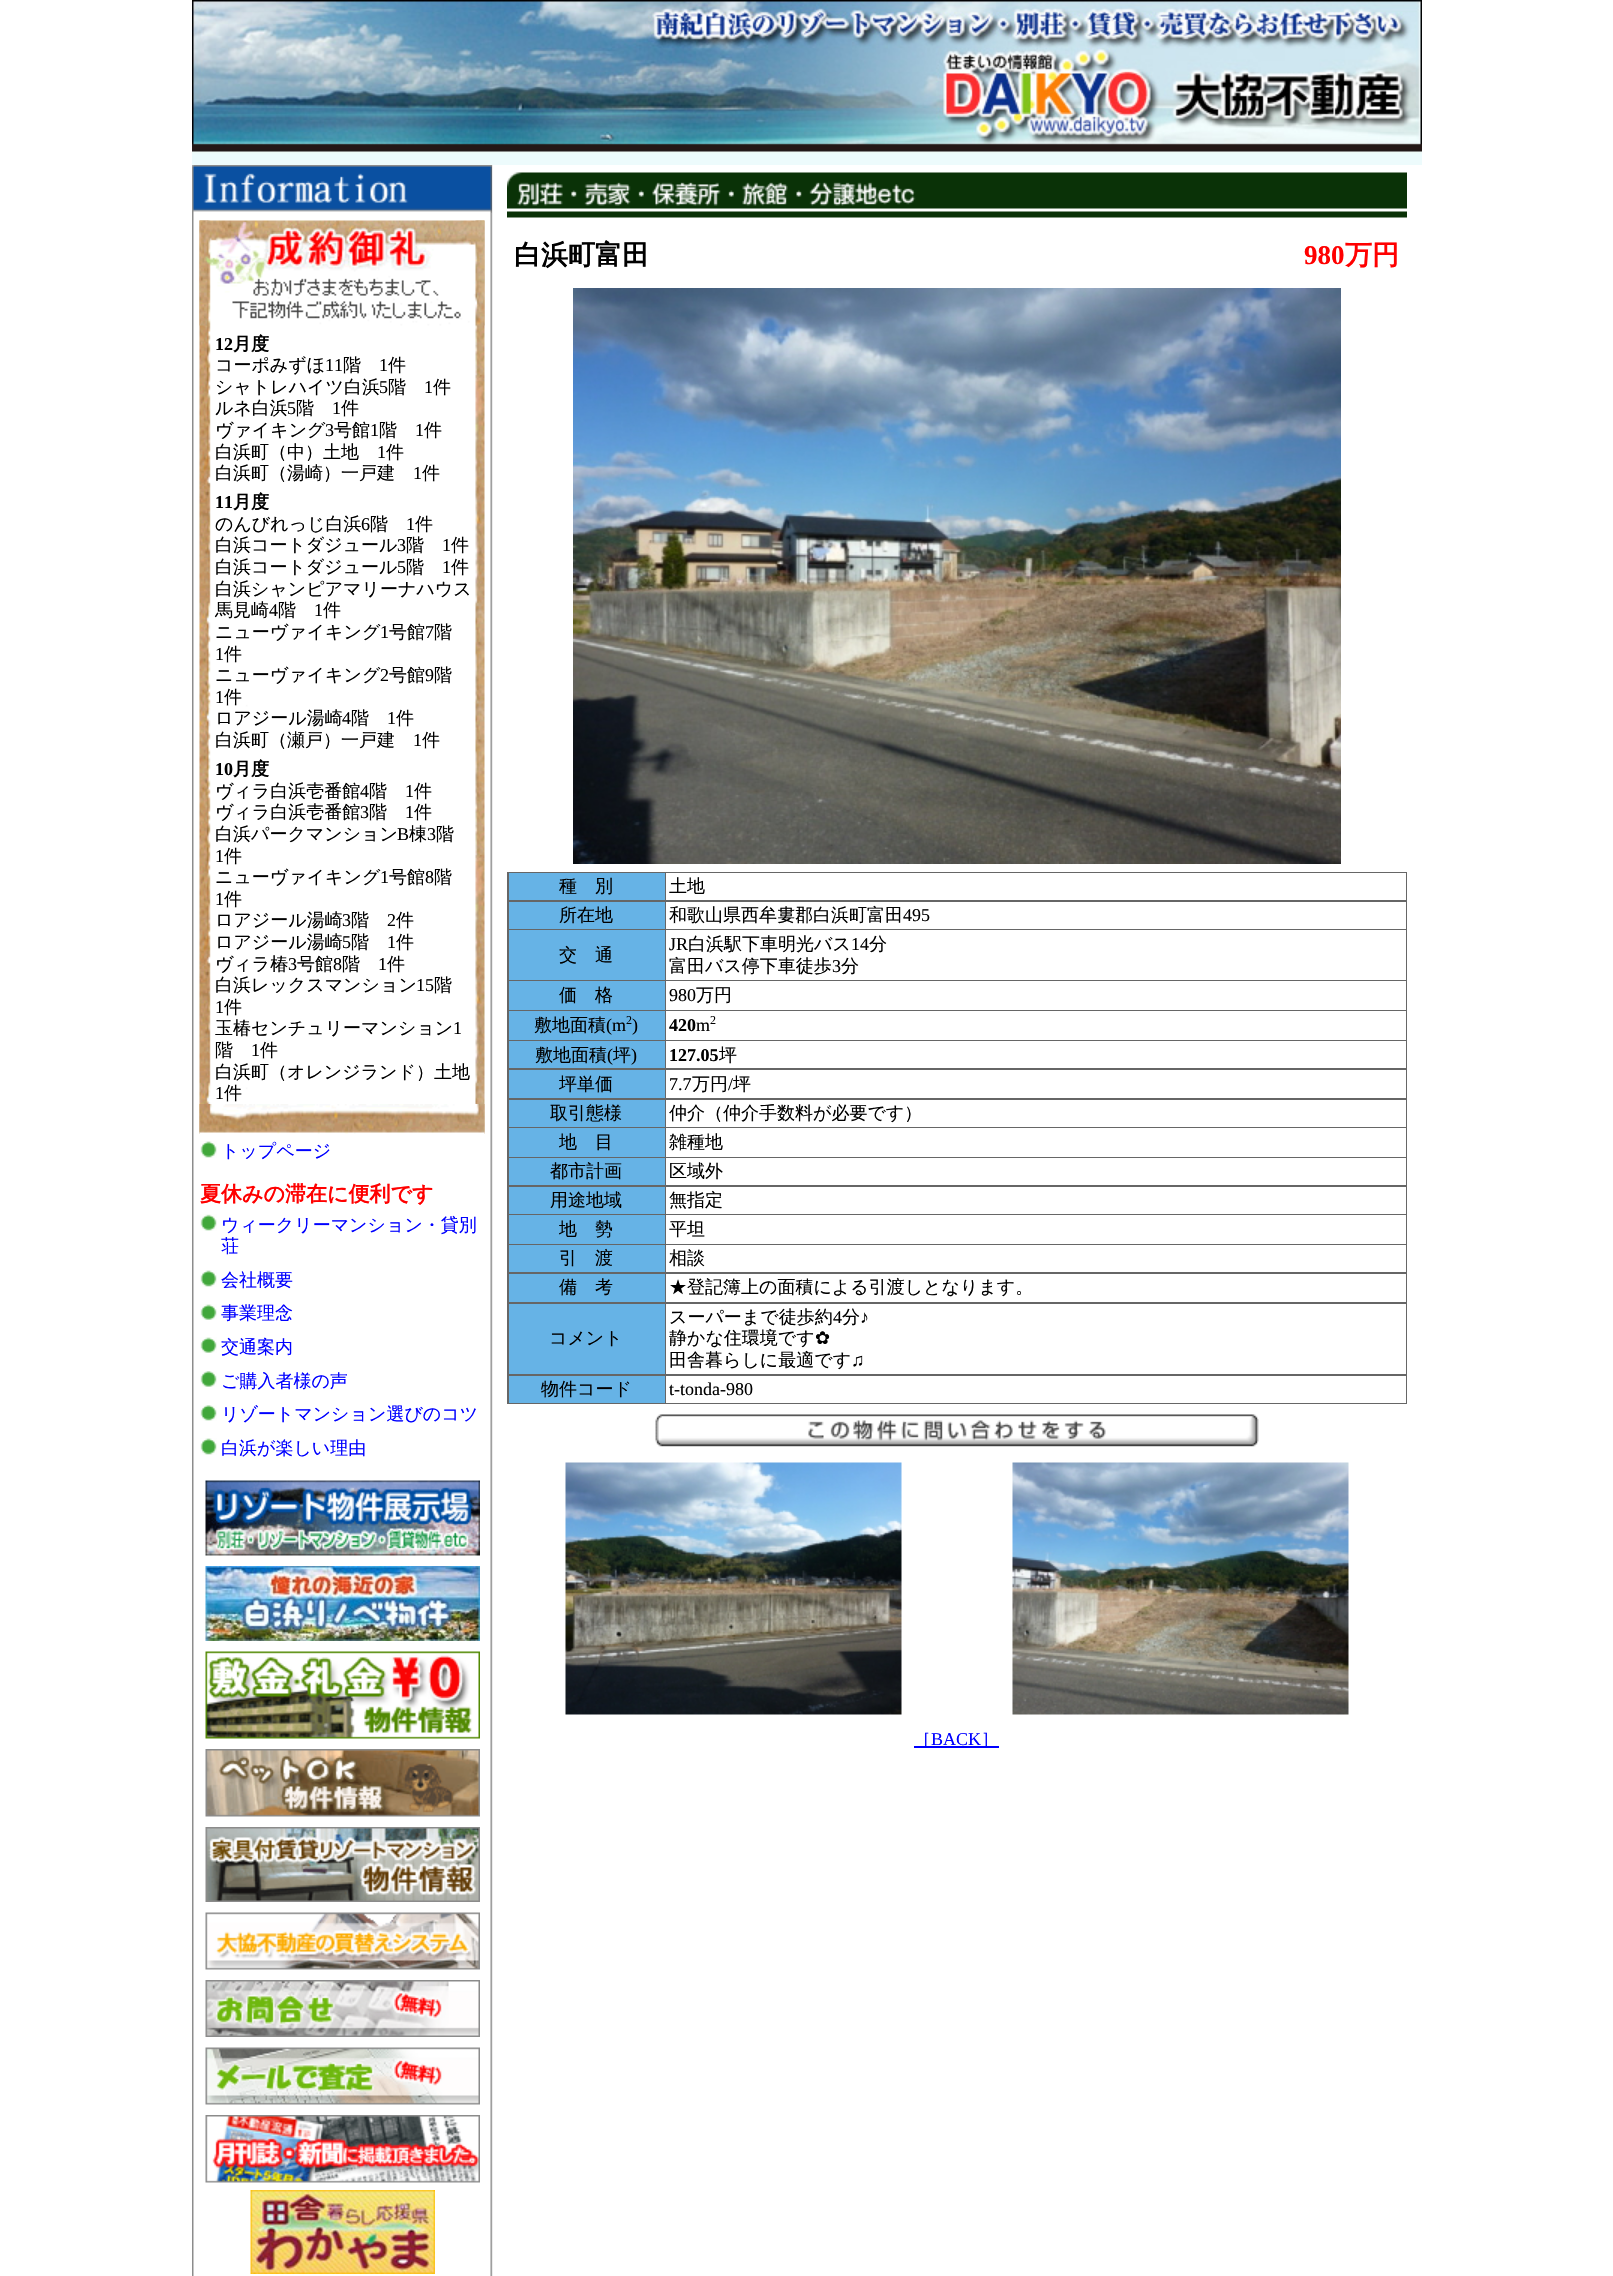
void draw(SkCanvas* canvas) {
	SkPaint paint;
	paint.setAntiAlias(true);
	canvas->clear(0xffffffff);
	canvas->drawImageRect(SkImages::DeferredFromEncodedData(SkData::MakeFromFileName("img1.png")), SkRect::MakeXYWH(192, 0, 1230, 165), SkSamplingOptions());
	canvas->drawImageRect(SkImages::DeferredFromEncodedData(SkData::MakeFromFileName("img2.png")), SkRect::MakeXYWH(192, 165, 301, 2111), SkSamplingOptions());
	canvas->drawImageRect(SkImages::DeferredFromEncodedData(SkData::MakeFromFileName("img3.png")), SkRect::MakeXYWH(192, 165, 300, 48), SkSamplingOptions());
	canvas->drawImageRect(SkImages::DeferredFromEncodedData(SkData::MakeFromFileName("img4.png")), SkRect::MakeXYWH(199, 220, 286, 914), SkSamplingOptions());
	canvas->drawImageRect(SkImages::DeferredFromEncodedData(SkData::MakeFromFileName("img5.png")), SkRect::MakeXYWH(199, 220, 286, 106), SkSamplingOptions());
	SkFont f1(fontMgr->matchFamilyStyle("Liberation Serif", SkFontStyle::Bold()), 18);
	f1.setSubpixel(true);
	paint.setColor(0xff000000);
	canvas->drawString("12", 215, 350, f1, paint);
	SkFont f2(fontMgr->matchFamilyStyle("WenQuanYi Zen Hei", SkFontStyle::Bold()), 18);
	f2.setSubpixel(true);
	canvas->drawString("月度", 233, 350, f2, paint);
	SkFont f3(fontMgr->matchFamilyStyle("WenQuanYi Zen Hei", SkFontStyle(500, SkFontStyle::kNormal_Width, SkFontStyle::kUpright_Slant)), 18);
	f3.setSubpixel(true);
	canvas->drawString("コーポみずほ", 215, 371, f3, paint);
	SkFont f4(fontMgr->matchFamilyStyle("Liberation Serif", SkFontStyle::Normal()), 18);
	f4.setSubpixel(true);
	canvas->drawString("11", 325, 371, f4, paint);
	canvas->drawString("階", 343, 371, f3, paint);
	canvas->drawString("1", 379, 371, f4, paint);
	canvas->drawString("件", 388, 371, f3, paint);
	canvas->drawString("シャトレハイツ白浜", 215, 393, f3, paint);
	canvas->drawString("5", 379, 393, f4, paint);
	canvas->drawString("階", 388, 393, f3, paint);
	canvas->drawString("1", 424, 393, f4, paint);
	canvas->drawString("件", 433, 393, f3, paint);
	canvas->drawString("ルネ白浜", 215, 414, f3, paint);
	canvas->drawString("5", 287, 414, f4, paint);
	canvas->drawString("階", 296, 414, f3, paint);
	canvas->drawString("1", 332, 414, f4, paint);
	canvas->drawString("件", 341, 414, f3, paint);
	canvas->drawString("ヴァイキング", 215, 436, f3, paint);
	canvas->drawString("3", 325, 436, f4, paint);
	canvas->drawString("号館", 334, 436, f3, paint);
	canvas->drawString("1", 370, 436, f4, paint);
	canvas->drawString("階", 379, 436, f3, paint);
	canvas->drawString("1", 415, 436, f4, paint);
	canvas->drawString("件", 424, 436, f3, paint);
	canvas->drawString("白浜町（中）土地", 215, 458, f3, paint);
	canvas->drawString("1", 377, 458, f4, paint);
	canvas->drawString("件", 386, 458, f3, paint);
	canvas->drawString("白浜町（湯崎）一戸建", 215, 479, f3, paint);
	canvas->drawString("1", 413, 479, f4, paint);
	canvas->drawString("件", 422, 479, f3, paint);
	canvas->drawString("11", 215, 508, f1, paint);
	canvas->drawString("月度", 233, 508, f2, paint);
	canvas->drawString("のんびれっじ白浜", 215, 530, f3, paint);
	canvas->drawString("6", 361, 530, f4, paint);
	canvas->drawString("階", 370, 530, f3, paint);
	canvas->drawString("1", 406, 530, f4, paint);
	canvas->drawString("件", 415, 530, f3, paint);
	canvas->drawString("白浜コートダジュール", 215, 551, f3, paint);
	canvas->drawString("3", 397, 551, f4, paint);
	canvas->drawString("階", 406, 551, f3, paint);
	canvas->drawString("1", 442, 551, f4, paint);
	canvas->drawString("件", 451, 551, f3, paint);
	canvas->drawString("白浜コートダジュール", 215, 573, f3, paint);
	canvas->drawString("5", 397, 573, f4, paint);
	canvas->drawString("階", 406, 573, f3, paint);
	canvas->drawString("1", 442, 573, f4, paint);
	canvas->drawString("件", 451, 573, f3, paint);
	canvas->drawString("白浜シャンピアマリーナハウス", 215, 595, f3, paint);
	canvas->drawString("馬見崎", 215, 616, f3, paint);
	canvas->drawString("4", 269, 616, f4, paint);
	canvas->drawString("階", 278, 616, f3, paint);
	canvas->drawString("1", 314, 616, f4, paint);
	canvas->drawString("件", 323, 616, f3, paint);
	canvas->drawString("ニューヴァイキング", 215, 638, f3, paint);
	canvas->drawString("1", 380, 638, f4, paint);
	canvas->drawString("号館", 389, 638, f3, paint);
	canvas->drawString("7", 425, 638, f4, paint);
	canvas->drawString("階", 434, 638, f3, paint);
	canvas->drawString("1", 215, 660, f4, paint);
	canvas->drawString("件", 224, 660, f3, paint);
	canvas->drawString("ニューヴァイキング", 215, 681, f3, paint);
	canvas->drawString("2", 380, 681, f4, paint);
	canvas->drawString("号館", 389, 681, f3, paint);
	canvas->drawString("9", 425, 681, f4, paint);
	canvas->drawString("階", 434, 681, f3, paint);
	canvas->drawString("1", 215, 703, f4, paint);
	canvas->drawString("件", 224, 703, f3, paint);
	canvas->drawString("ロアジール湯崎", 215, 724, f3, paint);
	canvas->drawString("4", 342, 724, f4, paint);
	canvas->drawString("階", 351, 724, f3, paint);
	canvas->drawString("1", 387, 724, f4, paint);
	canvas->drawString("件", 396, 724, f3, paint);
	canvas->drawString("白浜町（瀬戸）一戸建", 215, 746, f3, paint);
	canvas->drawString("1", 413, 746, f4, paint);
	canvas->drawString("件", 422, 746, f3, paint);
	canvas->drawString("10", 215, 775, f1, paint);
	canvas->drawString("月度", 233, 775, f2, paint);
	canvas->drawString("ヴィラ白浜壱番館", 215, 797, f3, paint);
	canvas->drawString("4", 360, 797, f4, paint);
	canvas->drawString("階", 369, 797, f3, paint);
	canvas->drawString("1", 405, 797, f4, paint);
	canvas->drawString("件", 414, 797, f3, paint);
	canvas->drawString("ヴィラ白浜壱番館", 215, 818, f3, paint);
	canvas->drawString("3", 360, 818, f4, paint);
	canvas->drawString("階", 369, 818, f3, paint);
	canvas->drawString("1", 405, 818, f4, paint);
	canvas->drawString("件", 414, 818, f3, paint);
	canvas->drawString("白浜パークマンション", 215, 840, f3, paint);
	canvas->drawString("B", 397, 840, f4, paint);
	canvas->drawString("棟", 409, 840, f3, paint);
	canvas->drawString("3", 427, 840, f4, paint);
	canvas->drawString("階", 436, 840, f3, paint);
	canvas->drawString("1", 215, 862, f4, paint);
	canvas->drawString("件", 224, 862, f3, paint);
	canvas->drawString("ニューヴァイキング", 215, 883, f3, paint);
	canvas->drawString("1", 380, 883, f4, paint);
	canvas->drawString("号館", 389, 883, f3, paint);
	canvas->drawString("8", 425, 883, f4, paint);
	canvas->drawString("階", 434, 883, f3, paint);
	canvas->drawString("1", 215, 905, f4, paint);
	canvas->drawString("件", 224, 905, f3, paint);
	canvas->drawString("ロアジール湯崎", 215, 926, f3, paint);
	canvas->drawString("3", 342, 926, f4, paint);
	canvas->drawString("階", 351, 926, f3, paint);
	canvas->drawString("2", 387, 926, f4, paint);
	canvas->drawString("件", 396, 926, f3, paint);
	canvas->drawString("ロアジール湯崎", 215, 948, f3, paint);
	canvas->drawString("5", 342, 948, f4, paint);
	canvas->drawString("階", 351, 948, f3, paint);
	canvas->drawString("1", 387, 948, f4, paint);
	canvas->drawString("件", 396, 948, f3, paint);
	canvas->drawString("ヴィラ椿", 215, 970, f3, paint);
	canvas->drawString("3", 288, 970, f4, paint);
	canvas->drawString("号館", 297, 970, f3, paint);
	canvas->drawString("8", 333, 970, f4, paint);
	canvas->drawString("階", 342, 970, f3, paint);
	canvas->drawString("1", 378, 970, f4, paint);
	canvas->drawString("件", 387, 970, f3, paint);
	canvas->drawString("白浜レックスマンション", 215, 991, f3, paint);
	canvas->drawString("15", 416, 991, f4, paint);
	canvas->drawString("階", 434, 991, f3, paint);
	canvas->drawString("1", 215, 1013, f4, paint);
	canvas->drawString("件", 224, 1013, f3, paint);
	canvas->drawString("玉椿センチュリーマンション", 215, 1034, f3, paint);
	canvas->drawString("1", 453, 1034, f4, paint);
	canvas->drawString("階", 215, 1056, f3, paint);
	canvas->drawString("1", 251, 1056, f4, paint);
	canvas->drawString("件", 260, 1056, f3, paint);
	canvas->drawString("白浜町（オレンジランド）土地", 215, 1078, f3, paint);
	canvas->drawString("1", 215, 1099, f4, paint);
	canvas->drawString("件", 224, 1099, f3, paint);
	canvas->drawImageRect(SkImages::DeferredFromEncodedData(SkData::MakeFromFileName("img6.png")), SkRect::MakeXYWH(199, 1104, 286, 30), SkSamplingOptions());
	canvas->drawImageRect(SkImages::DeferredFromEncodedData(SkData::MakeFromFileName("img7.png")), SkRect::MakeXYWH(200, 1141, 17, 17), SkSamplingOptions());
	paint.setColor(0xff0000ff);
	canvas->drawString("トップページ", 221, 1157, f3, paint);
	SkFont f5(fontMgr->matchFamilyStyle("WenQuanYi Zen Hei", SkFontStyle::Bold()), 21);
	f5.setSubpixel(true);
	paint.setColor(0xffff0000);
	canvas->drawString("夏休みの滞在に便利です", 200, 1201, f5, paint);
	canvas->drawImageRect(SkImages::DeferredFromEncodedData(SkData::MakeFromFileName("img8.png")), SkRect::MakeXYWH(200, 1214, 17, 17), SkSamplingOptions());
	paint.setColor(0xff0000ff);
	canvas->drawString("ウィークリーマンション・貸別", 221, 1231, f3, paint);
	canvas->drawString("荘", 221, 1252, f3, paint);
	canvas->drawImageRect(SkImages::DeferredFromEncodedData(SkData::MakeFromFileName("img7.png")), SkRect::MakeXYWH(200, 1270, 17, 17), SkSamplingOptions());
	canvas->drawString("会社概要", 221, 1286, f3, paint);
	canvas->drawImageRect(SkImages::DeferredFromEncodedData(SkData::MakeFromFileName("img9.png")), SkRect::MakeXYWH(200, 1304, 17, 16), SkSamplingOptions());
	canvas->drawString("事業理念", 221, 1319, f3, paint);
	canvas->drawImageRect(SkImages::DeferredFromEncodedData(SkData::MakeFromFileName("img9.png")), SkRect::MakeXYWH(200, 1337, 17, 16), SkSamplingOptions());
	canvas->drawString("交通案内", 221, 1353, f3, paint);
	canvas->drawImageRect(SkImages::DeferredFromEncodedData(SkData::MakeFromFileName("img10.png")), SkRect::MakeXYWH(200, 1371, 17, 16), SkSamplingOptions());
	canvas->drawString("ご購入者様の声", 221, 1387, f3, paint);
	canvas->drawImageRect(SkImages::DeferredFromEncodedData(SkData::MakeFromFileName("img11.png")), SkRect::MakeXYWH(200, 1405, 17, 16), SkSamplingOptions());
	canvas->drawString("リゾートマンション選びのコツ", 221, 1420, f3, paint);
	canvas->drawImageRect(SkImages::DeferredFromEncodedData(SkData::MakeFromFileName("img7.png")), SkRect::MakeXYWH(200, 1438, 17, 17), SkSamplingOptions());
	canvas->drawString("白浜が楽しい理由", 221, 1454, f3, paint);
	canvas->drawImageRect(SkImages::DeferredFromEncodedData(SkData::MakeFromFileName("img12.png")), SkRect::MakeXYWH(205, 1480, 275, 76), SkSamplingOptions());
	canvas->drawImageRect(SkImages::DeferredFromEncodedData(SkData::MakeFromFileName("img13.png")), SkRect::MakeXYWH(205, 1566, 275, 75), SkSamplingOptions());
	canvas->drawImageRect(SkImages::DeferredFromEncodedData(SkData::MakeFromFileName("img14.png")), SkRect::MakeXYWH(205, 1651, 275, 88), SkSamplingOptions());
	canvas->drawImageRect(SkImages::DeferredFromEncodedData(SkData::MakeFromFileName("img15.png")), SkRect::MakeXYWH(205, 1749, 275, 68), SkSamplingOptions());
	canvas->drawImageRect(SkImages::DeferredFromEncodedData(SkData::MakeFromFileName("img16.png")), SkRect::MakeXYWH(205, 1827, 275, 75), SkSamplingOptions());
	canvas->drawImageRect(SkImages::DeferredFromEncodedData(SkData::MakeFromFileName("img17.png")), SkRect::MakeXYWH(205, 1912, 275, 58), SkSamplingOptions());
	canvas->drawImageRect(SkImages::DeferredFromEncodedData(SkData::MakeFromFileName("img18.png")), SkRect::MakeXYWH(205, 1980, 275, 57), SkSamplingOptions());
	canvas->drawImageRect(SkImages::DeferredFromEncodedData(SkData::MakeFromFileName("img19.png")), SkRect::MakeXYWH(205, 2047, 275, 58), SkSamplingOptions());
	canvas->drawImageRect(SkImages::DeferredFromEncodedData(SkData::MakeFromFileName("img20.png")), SkRect::MakeXYWH(205, 2115, 275, 68), SkSamplingOptions());
	canvas->drawImageRect(SkImages::DeferredFromEncodedData(SkData::MakeFromFileName("img21.png")), SkRect::MakeXYWH(250, 2190, 185, 84), SkSamplingOptions());
	canvas->drawImageRect(SkImages::DeferredFromEncodedData(SkData::MakeFromFileName("img22.png")), SkRect::MakeXYWH(507, 172, 900, 46), SkSamplingOptions());
	SkFont f6(fontMgr->matchFamilyStyle("WenQuanYi Zen Hei", SkFontStyle::Bold()), 27);
	f6.setSubpixel(true);
	paint.setColor(0xff000000);
	canvas->drawString("白浜町富田", 514, 264, f6, paint);
	SkFont f7(fontMgr->matchFamilyStyle("Liberation Serif", SkFontStyle::Bold()), 27);
	f7.setSubpixel(true);
	paint.setColor(0xffff0000);
	canvas->drawString("980", 1304, 264, f7, paint);
	canvas->drawString("万円", 1345, 264, f6, paint);
	canvas->drawImageRect(SkImages::DeferredFromEncodedData(SkData::MakeFromFileName("img23.png")), SkRect::MakeXYWH(573, 288, 768, 576), SkSamplingOptions());
	paint.setColor(0xff666666);
	canvas->drawRect(SkRect::MakeXYWH(507, 872, 900, 532), paint);
	paint.setColor(0xff66b3e6);
	canvas->drawRect(SkRect::MakeXYWH(509, 873, 156, 27), paint);
	paint.setColor(0xff000000);
	canvas->drawString("種　別", 559, 892, f3, paint);
	paint.setColor(0xffffffff);
	canvas->drawRect(SkRect::MakeXYWH(666, 873, 740, 27), paint);
	paint.setColor(0xff000000);
	canvas->drawString("土地", 669, 892, f3, paint);
	paint.setColor(0xff66b3e6);
	canvas->drawRect(SkRect::MakeXYWH(509, 902, 156, 27), paint);
	paint.setColor(0xff000000);
	canvas->drawString("所在地", 559, 921, f3, paint);
	paint.setColor(0xffffffff);
	canvas->drawRect(SkRect::MakeXYWH(666, 902, 740, 27), paint);
	paint.setColor(0xff000000);
	canvas->drawString("和歌山県西牟婁郡白浜町富田", 669, 921, f3, paint);
	canvas->drawString("495", 903, 921, f4, paint);
	paint.setColor(0xff66b3e6);
	canvas->drawRect(SkRect::MakeXYWH(509, 930, 156, 50), paint);
	paint.setColor(0xff000000);
	canvas->drawString("交　通", 559, 961, f3, paint);
	paint.setColor(0xffffffff);
	canvas->drawRect(SkRect::MakeXYWH(666, 930, 740, 50), paint);
	paint.setColor(0xff000000);
	canvas->drawString("JR", 669, 950, f4, paint);
	canvas->drawString("白浜駅下車明光バス", 688, 950, f3, paint);
	canvas->drawString("14", 851, 950, f4, paint);
	canvas->drawString("分", 869, 950, f3, paint);
	canvas->drawString("富田バス停下車徒歩", 669, 972, f3, paint);
	canvas->drawString("3", 832, 972, f4, paint);
	canvas->drawString("分", 841, 972, f3, paint);
	paint.setColor(0xff66b3e6);
	canvas->drawRect(SkRect::MakeXYWH(509, 981, 156, 29), paint);
	paint.setColor(0xff000000);
	canvas->drawString("価　格", 559, 1001, f3, paint);
	paint.setColor(0xffffffff);
	canvas->drawRect(SkRect::MakeXYWH(666, 981, 740, 29), paint);
	paint.setColor(0xff000000);
	canvas->drawString("980", 669, 1001, f4, paint);
	canvas->drawString("万円", 696, 1001, f3, paint);
	paint.setColor(0xff66b3e6);
	canvas->drawRect(SkRect::MakeXYWH(509, 1011, 156, 29), paint);
	paint.setColor(0xff000000);
	canvas->drawString("敷地面積", 534, 1031, f3, paint);
	canvas->drawString("(m", 606, 1031, f4, paint);
	SkFont f8(fontMgr->matchFamilyStyle("Liberation Serif", SkFontStyle::Normal()), 12);
	f8.setSubpixel(true);
	canvas->drawString("2", 626, 1024, f8, paint);
	canvas->drawString(")", 632, 1031, f4, paint);
	paint.setColor(0xffffffff);
	canvas->drawRect(SkRect::MakeXYWH(666, 1011, 740, 29), paint);
	paint.setColor(0xff000000);
	canvas->drawString("420", 669, 1031, f1, paint);
	canvas->drawString("m", 696, 1031, f4, paint);
	canvas->drawString("2", 710, 1024, f8, paint);
	paint.setColor(0xff66b3e6);
	canvas->drawRect(SkRect::MakeXYWH(509, 1041, 156, 27), paint);
	paint.setColor(0xff000000);
	canvas->drawString("敷地面積", 535, 1061, f3, paint);
	canvas->drawString("(", 607, 1061, f4, paint);
	canvas->drawString("坪", 613, 1061, f3, paint);
	canvas->drawString(")", 631, 1061, f4, paint);
	paint.setColor(0xffffffff);
	canvas->drawRect(SkRect::MakeXYWH(666, 1041, 740, 27), paint);
	paint.setColor(0xff000000);
	canvas->drawString("127.05", 669, 1061, f1, paint);
	canvas->drawString("坪", 719, 1061, f3, paint);
	paint.setColor(0xff66b3e6);
	canvas->drawRect(SkRect::MakeXYWH(509, 1070, 156, 28), paint);
	paint.setColor(0xff000000);
	canvas->drawString("坪単価", 559, 1090, f3, paint);
	paint.setColor(0xffffffff);
	canvas->drawRect(SkRect::MakeXYWH(666, 1070, 740, 28), paint);
	paint.setColor(0xff000000);
	canvas->drawString("7.7", 669, 1090, f4, paint);
	canvas->drawString("万円", 692, 1090, f3, paint);
	canvas->drawString("/", 728, 1090, f4, paint);
	canvas->drawString("坪", 733, 1090, f3, paint);
	paint.setColor(0xff66b3e6);
	canvas->drawRect(SkRect::MakeXYWH(509, 1100, 156, 27), paint);
	paint.setColor(0xff000000);
	canvas->drawString("取引態様", 550, 1119, f3, paint);
	paint.setColor(0xffffffff);
	canvas->drawRect(SkRect::MakeXYWH(666, 1100, 740, 27), paint);
	paint.setColor(0xff000000);
	canvas->drawString("仲介（仲介手数料が必要です）", 669, 1119, f3, paint);
	paint.setColor(0xff66b3e6);
	canvas->drawRect(SkRect::MakeXYWH(509, 1128, 156, 29), paint);
	paint.setColor(0xff000000);
	canvas->drawString("地　目", 559, 1148, f3, paint);
	paint.setColor(0xffffffff);
	canvas->drawRect(SkRect::MakeXYWH(666, 1128, 740, 29), paint);
	paint.setColor(0xff000000);
	canvas->drawString("雑種地", 669, 1148, f3, paint);
	paint.setColor(0xff66b3e6);
	canvas->drawRect(SkRect::MakeXYWH(509, 1158, 156, 27), paint);
	paint.setColor(0xff000000);
	canvas->drawString("都市計画", 550, 1177, f3, paint);
	paint.setColor(0xffffffff);
	canvas->drawRect(SkRect::MakeXYWH(666, 1158, 740, 27), paint);
	paint.setColor(0xff000000);
	canvas->drawString("区域外", 669, 1177, f3, paint);
	paint.setColor(0xff66b3e6);
	canvas->drawRect(SkRect::MakeXYWH(509, 1187, 156, 27), paint);
	paint.setColor(0xff000000);
	canvas->drawString("用途地域", 550, 1206, f3, paint);
	paint.setColor(0xffffffff);
	canvas->drawRect(SkRect::MakeXYWH(666, 1187, 740, 27), paint);
	paint.setColor(0xff000000);
	canvas->drawString("無指定", 669, 1206, f3, paint);
	paint.setColor(0xff66b3e6);
	canvas->drawRect(SkRect::MakeXYWH(509, 1215, 156, 29), paint);
	paint.setColor(0xff000000);
	canvas->drawString("地　勢", 559, 1235, f3, paint);
	paint.setColor(0xffffffff);
	canvas->drawRect(SkRect::MakeXYWH(666, 1215, 740, 29), paint);
	paint.setColor(0xff000000);
	canvas->drawString("平坦", 669, 1235, f3, paint);
	paint.setColor(0xff66b3e6);
	canvas->drawRect(SkRect::MakeXYWH(509, 1245, 156, 27), paint);
	paint.setColor(0xff000000);
	canvas->drawString("引　渡", 559, 1264, f3, paint);
	paint.setColor(0xffffffff);
	canvas->drawRect(SkRect::MakeXYWH(666, 1245, 740, 27), paint);
	paint.setColor(0xff000000);
	canvas->drawString("相談", 669, 1264, f3, paint);
	paint.setColor(0xff66b3e6);
	canvas->drawRect(SkRect::MakeXYWH(509, 1274, 156, 28), paint);
	paint.setColor(0xff000000);
	canvas->drawString("備　考", 559, 1293, f3, paint);
	paint.setColor(0xffffffff);
	canvas->drawRect(SkRect::MakeXYWH(666, 1274, 740, 28), paint);
	paint.setColor(0xff000000);
	canvas->drawString("★登記簿上の面積による引渡しとなります。", 669, 1293, f3, paint);
	paint.setColor(0xff66b3e6);
	canvas->drawRect(SkRect::MakeXYWH(509, 1304, 156, 70), paint);
	paint.setColor(0xff000000);
	canvas->drawString("コメント", 549, 1344, f3, paint);
	paint.setColor(0xffffffff);
	canvas->drawRect(SkRect::MakeXYWH(666, 1304, 740, 70), paint);
	paint.setColor(0xff000000);
	canvas->drawString("スーパーまで徒歩約", 669, 1323, f3, paint);
	canvas->drawString("4", 833, 1323, f4, paint);
	canvas->drawString("分", 842, 1323, f3, paint);
	canvas->drawString("♪", 860, 1323, f4, paint);
	canvas->drawString("静かな住環境です", 669, 1344, f3, paint);
	SkFont f9(fontMgr->matchFamilyStyle("DejaVu Sans", SkFontStyle::Normal()), 18);
	f9.setSubpixel(true);
	canvas->drawString("✿", 815, 1344, f9, paint);
	canvas->drawString("田舎暮らしに最適です", 669, 1366, f3, paint);
	canvas->drawString("♫", 851, 1366, f4, paint);
	paint.setColor(0xff66b3e6);
	canvas->drawRect(SkRect::MakeXYWH(509, 1376, 156, 27), paint);
	paint.setColor(0xff000000);
	canvas->drawString("物件コード", 541, 1395, f3, paint);
	paint.setColor(0xffffffff);
	canvas->drawRect(SkRect::MakeXYWH(666, 1376, 740, 27), paint);
	paint.setColor(0xff000000);
	canvas->drawString("t-tonda-980", 669, 1395, f4, paint);
	canvas->drawImageRect(SkImages::DeferredFromEncodedData(SkData::MakeFromFileName("img24.png")), SkRect::MakeXYWH(655, 1414, 604, 33), SkSamplingOptions());
	canvas->drawImageRect(SkImages::DeferredFromEncodedData(SkData::MakeFromFileName("img25.png")), SkRect::MakeXYWH(565, 1462, 337, 253), SkSamplingOptions());
	canvas->drawImageRect(SkImages::DeferredFromEncodedData(SkData::MakeFromFileName("img26.png")), SkRect::MakeXYWH(1012, 1462, 337, 253), SkSamplingOptions());
	paint.setColor(0xff0000ff);
	canvas->drawRect(SkRect::MakeXYWH(914, 1746, 85, 2), paint);
	canvas->drawString("［", 913, 1745, f3, paint);
	canvas->drawString("BACK", 931, 1745, f4, paint);
	canvas->drawString("］", 981, 1745, f3, paint);
}
